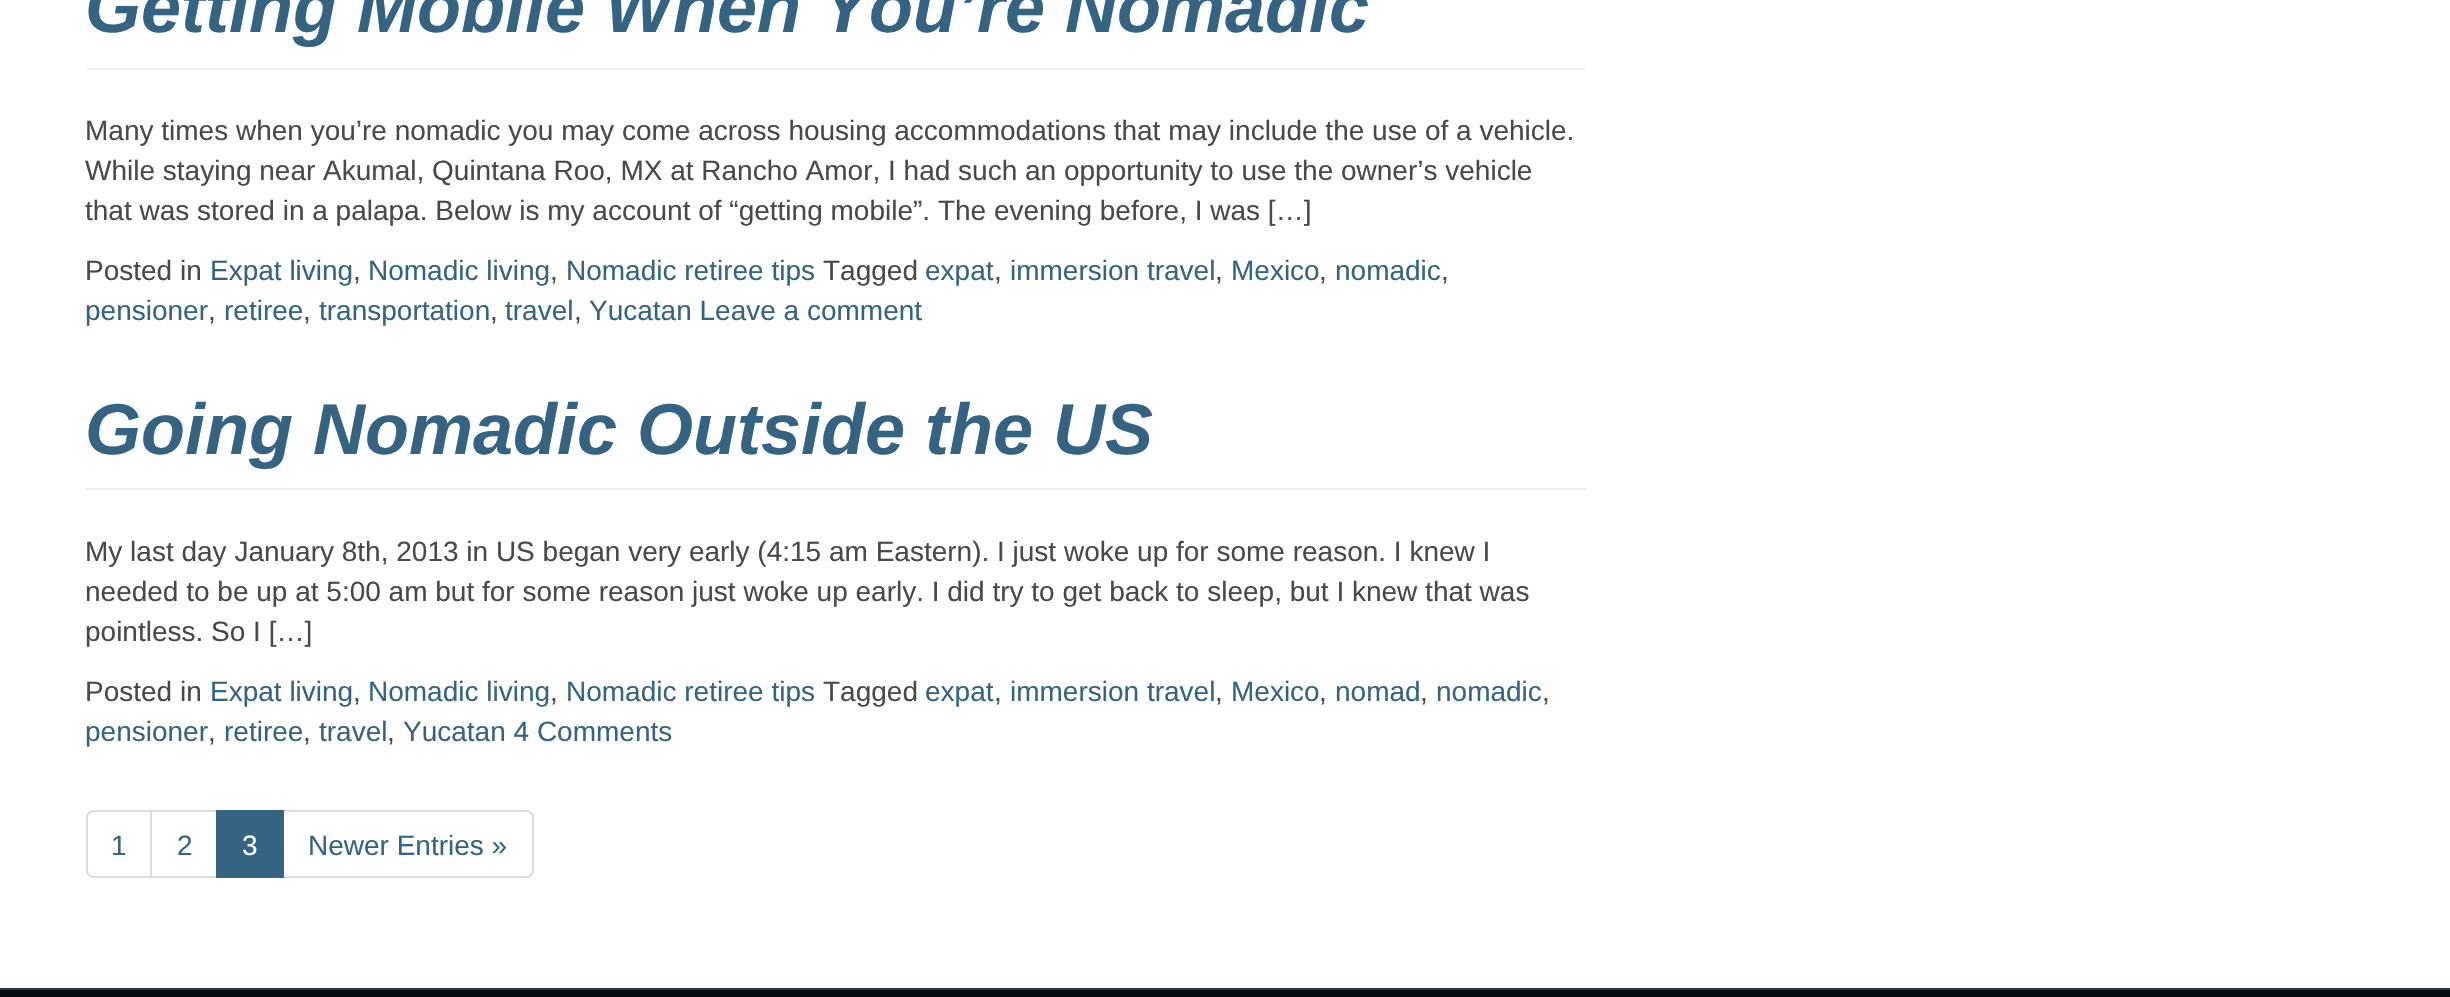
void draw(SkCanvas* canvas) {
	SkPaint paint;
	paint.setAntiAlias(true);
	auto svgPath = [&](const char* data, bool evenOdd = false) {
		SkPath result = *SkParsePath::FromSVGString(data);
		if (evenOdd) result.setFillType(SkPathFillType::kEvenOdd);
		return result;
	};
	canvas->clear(0xffffffff);
	paint.setColor(0xffeeeeee);
	canvas->drawRect(SkRect::MakeXYWH(86, 68, 1500, 2), paint);
	SkFont f1(fontMgr->matchFamilyStyle("Liberation Sans", SkFontStyle::BoldItalic()), 72);
	f1.setSubpixel(true);
	paint.setColor(0xff356482);
	canvas->drawString("Getting Mobile When You’re Nomadic", 85, 32, f1, paint);
	SkFont f2(fontMgr->matchFamilyStyle("Liberation Sans", SkFontStyle::Normal()), 28);
	f2.setSubpixel(true);
	paint.setColor(0xff494949);
	canvas->drawString("Many times when you’re nomadic you may come across housing accommodations that may include the use of a vehicle.", 85, 140, f2, paint);
	canvas->drawString("While staying near Akumal, Quintana Roo, MX at Rancho Amor, I had such an opportunity to use the owner’s vehicle", 85, 180, f2, paint);
	canvas->drawString("that was stored in a palapa. Below is my account of “getting mobile”. The evening before, I was […]", 85, 220, f2, paint);
	canvas->drawString("Posted in", 85, 280, f2, paint);
	paint.setColor(0xff356482);
	canvas->drawString("Expat living", 210, 280, f2, paint);
	paint.setColor(0xff494949);
	canvas->drawString(",", 353, 280, f2, paint);
	paint.setColor(0xff356482);
	canvas->drawString("Nomadic living", 368, 280, f2, paint);
	paint.setColor(0xff494949);
	canvas->drawString(",", 550, 280, f2, paint);
	paint.setColor(0xff356482);
	canvas->drawString("Nomadic retiree tips", 566, 280, f2, paint);
	paint.setColor(0xff494949);
	canvas->drawString("Tagged", 823, 280, f2, paint);
	paint.setColor(0xff356482);
	canvas->drawString("expat", 925, 280, f2, paint);
	paint.setColor(0xff494949);
	canvas->drawString(",", 994, 280, f2, paint);
	paint.setColor(0xff356482);
	canvas->drawString("immersion travel", 1010, 280, f2, paint);
	paint.setColor(0xff494949);
	canvas->drawString(",", 1215, 280, f2, paint);
	paint.setColor(0xff356482);
	canvas->drawString("Mexico", 1231, 280, f2, paint);
	paint.setColor(0xff494949);
	canvas->drawString(",", 1319, 280, f2, paint);
	paint.setColor(0xff356482);
	canvas->drawString("nomadic", 1335, 280, f2, paint);
	paint.setColor(0xff494949);
	canvas->drawString(",", 1441, 280, f2, paint);
	paint.setColor(0xff356482);
	canvas->drawString("pensioner", 85, 320, f2, paint);
	paint.setColor(0xff494949);
	canvas->drawString(",", 208, 320, f2, paint);
	paint.setColor(0xff356482);
	canvas->drawString("retiree", 224, 320, f2, paint);
	paint.setColor(0xff494949);
	canvas->drawString(",", 303, 320, f2, paint);
	paint.setColor(0xff356482);
	canvas->drawString("transportation", 319, 320, f2, paint);
	paint.setColor(0xff494949);
	canvas->drawString(",", 490, 320, f2, paint);
	paint.setColor(0xff356482);
	canvas->drawString("travel", 505, 320, f2, paint);
	paint.setColor(0xff494949);
	canvas->drawString(",", 574, 320, f2, paint);
	paint.setColor(0xff356482);
	canvas->drawString("Yucatan Leave a comment", 589, 320, f2, paint);
	paint.setColor(0xffeeeeee);
	canvas->drawRect(SkRect::MakeXYWH(86, 488, 1500, 2), paint);
	paint.setColor(0xff356482);
	canvas->drawString("Going Nomadic Outside the US", 85, 454, f1, paint);
	paint.setColor(0xff494949);
	canvas->drawString("My last day January 8th, 2013 in US began very early (4:15 am Eastern). I just woke up for some reason. I knew I", 85, 561, f2, paint);
	canvas->drawString("needed to be up at 5:00 am but for some reason just woke up early. I did try to get back to sleep, but I knew that was", 85, 601, f2, paint);
	canvas->drawString("pointless. So I […]", 85, 641, f2, paint);
	canvas->drawString("Posted in", 85, 701, f2, paint);
	paint.setColor(0xff356482);
	canvas->drawString("Expat living", 210, 701, f2, paint);
	paint.setColor(0xff494949);
	canvas->drawString(",", 353, 701, f2, paint);
	paint.setColor(0xff356482);
	canvas->drawString("Nomadic living", 368, 701, f2, paint);
	paint.setColor(0xff494949);
	canvas->drawString(",", 550, 701, f2, paint);
	paint.setColor(0xff356482);
	canvas->drawString("Nomadic retiree tips", 566, 701, f2, paint);
	paint.setColor(0xff494949);
	canvas->drawString("Tagged", 823, 701, f2, paint);
	paint.setColor(0xff356482);
	canvas->drawString("expat", 925, 701, f2, paint);
	paint.setColor(0xff494949);
	canvas->drawString(",", 994, 701, f2, paint);
	paint.setColor(0xff356482);
	canvas->drawString("immersion travel", 1010, 701, f2, paint);
	paint.setColor(0xff494949);
	canvas->drawString(",", 1215, 701, f2, paint);
	paint.setColor(0xff356482);
	canvas->drawString("Mexico", 1231, 701, f2, paint);
	paint.setColor(0xff494949);
	canvas->drawString(",", 1319, 701, f2, paint);
	paint.setColor(0xff356482);
	canvas->drawString("nomad", 1335, 701, f2, paint);
	paint.setColor(0xff494949);
	canvas->drawString(",", 1420, 701, f2, paint);
	paint.setColor(0xff356482);
	canvas->drawString("nomadic", 1436, 701, f2, paint);
	paint.setColor(0xff494949);
	canvas->drawString(",", 1542, 701, f2, paint);
	paint.setColor(0xff356482);
	canvas->drawString("pensioner", 85, 741, f2, paint);
	paint.setColor(0xff494949);
	canvas->drawString(",", 208, 741, f2, paint);
	paint.setColor(0xff356482);
	canvas->drawString("retiree", 224, 741, f2, paint);
	paint.setColor(0xff494949);
	canvas->drawString(",", 303, 741, f2, paint);
	paint.setColor(0xff356482);
	canvas->drawString("travel", 319, 741, f2, paint);
	paint.setColor(0xff494949);
	canvas->drawString(",", 387, 741, f2, paint);
	paint.setColor(0xff356482);
	canvas->drawString("Yucatan 4 Comments", 403, 741, f2, paint);
	paint.setStroke(true);
	paint.setStrokeWidth(2);
	paint.setColor(0xffdddddd);
	canvas->drawPath(svgPath("M94 811H151V877H94C90 877 87 874 87 870V818C87 814 90 811 94 811Z"), paint);
	paint.setStroke(false);
	paint.setColor(0xff356482);
	canvas->drawString("1", 111, 855, f2, paint);
	paint.setStroke(true);
	paint.setColor(0xffdddddd);
	canvas->drawRect(SkRect::MakeXYWH(151, 811, 66, 66), paint);
	paint.setStroke(false);
	paint.setColor(0xff356482);
	canvas->drawString("2", 177, 855, f2, paint);
	paint.setStroke(true);
	paint.setColor(0xffdddddd);
	canvas->drawPath(svgPath("M283 811H526C530 811 533 814 533 818V870C533 874 530 877 526 877H283Z"), paint);
	paint.setStroke(false);
	paint.setColor(0xff356482);
	canvas->drawRect(SkRect::MakeXYWH(216, 810, 68, 68), paint);
	paint.setColor(0xffffffff);
	canvas->drawString("3", 242, 855, f2, paint);
	paint.setColor(0xff356482);
	canvas->drawString("Newer Entries »", 308, 855, f2, paint);
	paint.setColor(0xff040c14);
	canvas->drawRect(SkRect::MakeXYWH(0, 990, 2450, 7), paint);
	paint.setColor(0xff333333);
	canvas->drawRect(SkRect::MakeXYWH(0, 988, 2450, 2), paint);
}
